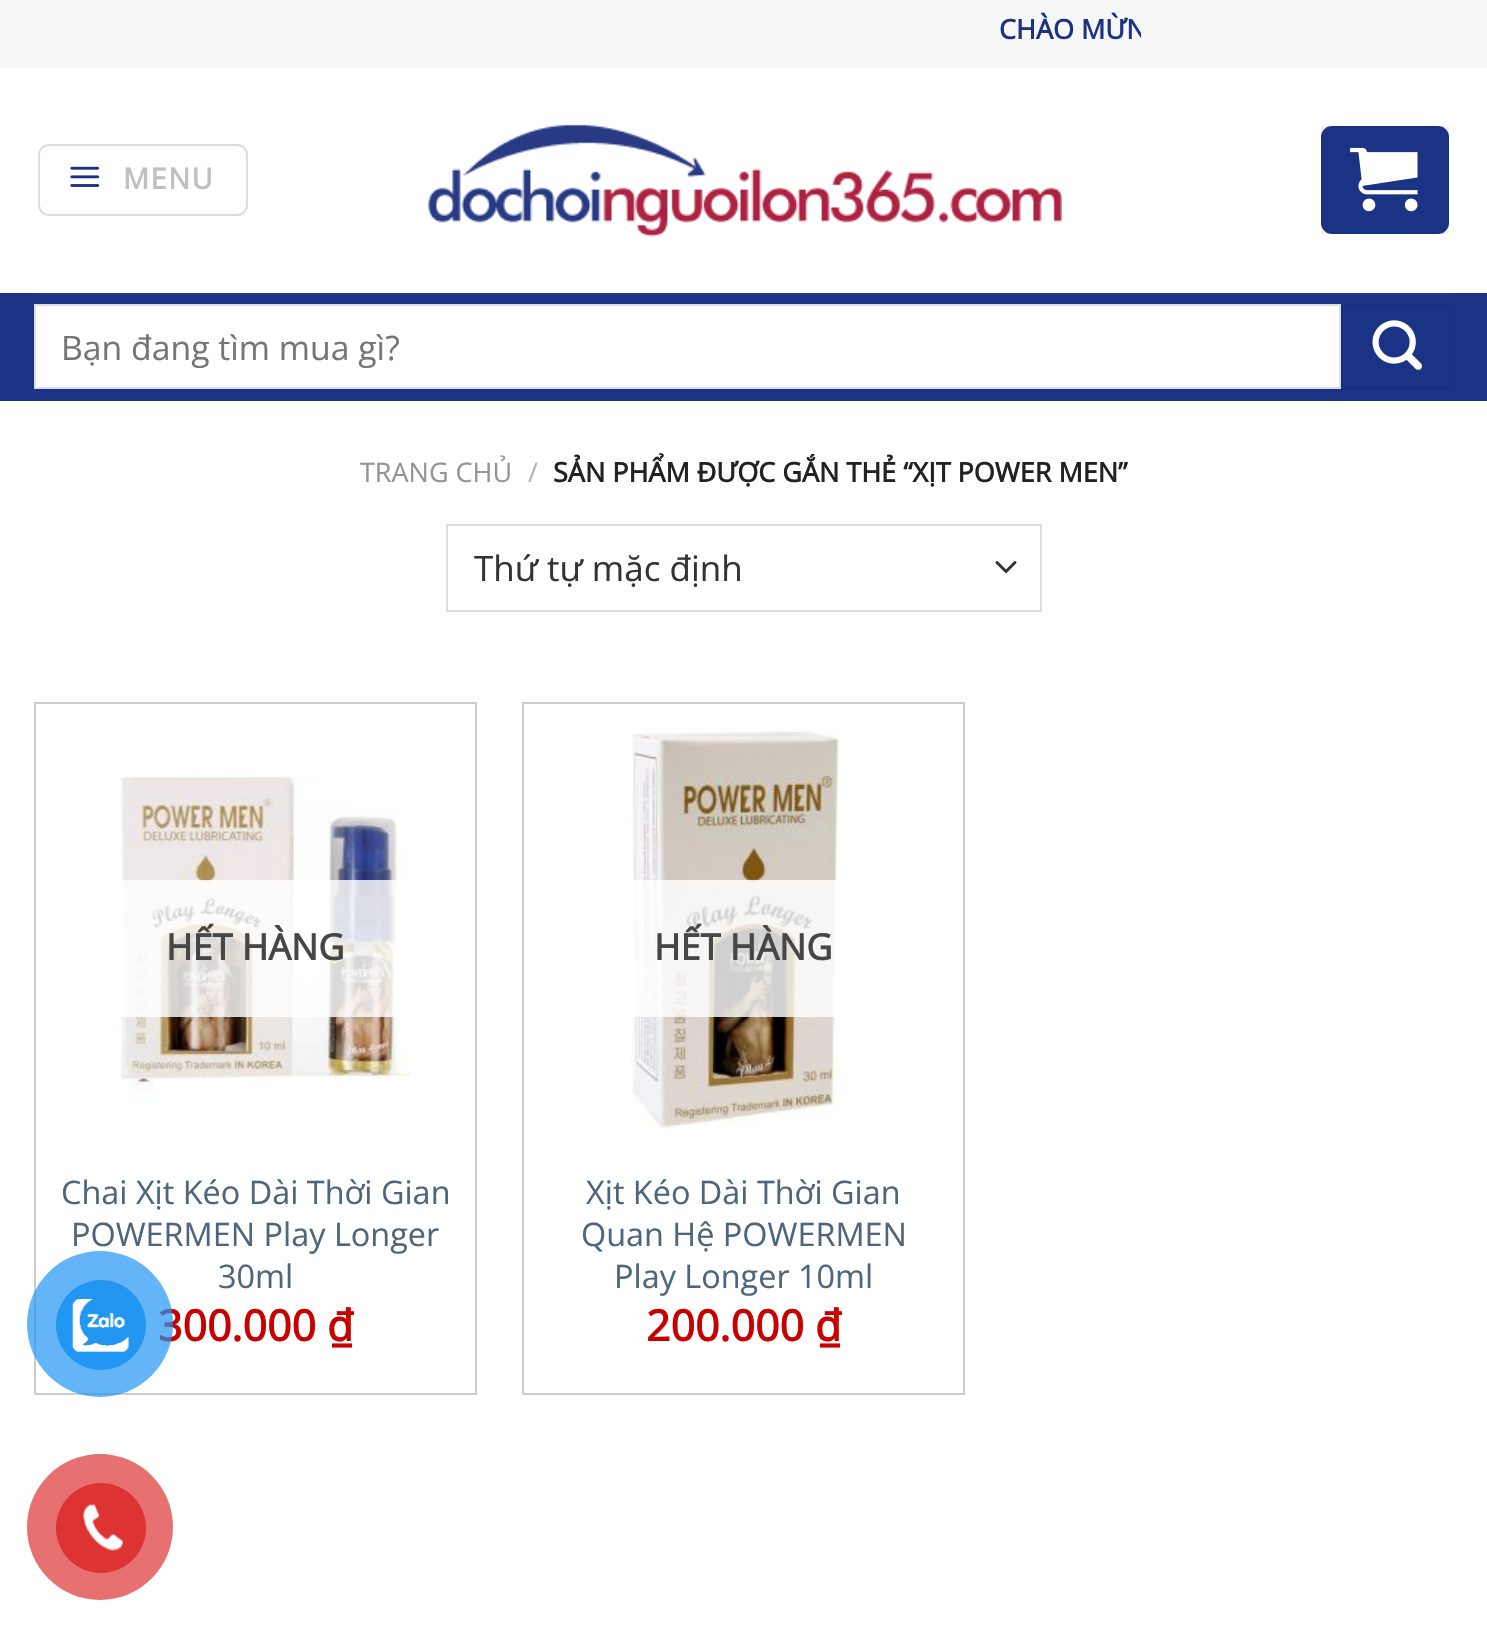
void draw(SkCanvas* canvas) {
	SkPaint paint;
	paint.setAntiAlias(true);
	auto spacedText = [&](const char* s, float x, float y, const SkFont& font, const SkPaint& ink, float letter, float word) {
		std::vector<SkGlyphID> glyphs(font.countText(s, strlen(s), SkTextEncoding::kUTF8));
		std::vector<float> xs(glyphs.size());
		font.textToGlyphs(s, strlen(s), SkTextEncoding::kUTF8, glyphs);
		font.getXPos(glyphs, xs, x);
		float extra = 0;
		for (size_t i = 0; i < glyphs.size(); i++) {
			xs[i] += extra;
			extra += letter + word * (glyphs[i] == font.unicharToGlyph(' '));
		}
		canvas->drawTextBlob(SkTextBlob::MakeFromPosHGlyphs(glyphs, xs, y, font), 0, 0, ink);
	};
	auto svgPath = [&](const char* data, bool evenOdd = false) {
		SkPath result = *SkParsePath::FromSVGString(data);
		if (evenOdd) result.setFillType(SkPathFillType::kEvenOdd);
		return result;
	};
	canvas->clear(0xffffffff);
	paint.setColor(0xfff7f7f7);
	canvas->drawRect(SkRect::MakeXYWH(0, 0, 1487, 68), paint);
	canvas->save();
	canvas->clipRect(SkRect::MakeXYWH(347, 11, 794, 36));
	SkFont f1(fontMgr->matchFamilyStyle("Open Sans", SkFontStyle::Bold()), 27);
	f1.setSubpixel(true);
	paint.setColor(0xff1a3385);
	canvas->drawString("CHÀO MỪN", 999, 39, f1, paint);
	canvas->restore();
	paint.setStroke(true);
	paint.setStrokeWidth(2);
	paint.setColor(0xffdddddd);
	canvas->drawRoundRect(SkRect::MakeXYWH(39, 145, 208, 70), 10, 10, paint);
	canvas->drawImageRect(SkImages::DeferredFromEncodedData(SkData::MakeFromFileName("img1.png")), SkRect::MakeXYWH(70, 166, 30, 21), SkSamplingOptions());
	SkFont f2(fontMgr->matchFamilyStyle("Open Sans", SkFontStyle::Bold()), 29);
	f2.setSubpixel(true);
	paint.setStroke(false);
	paint.setColor(0xffc0c0c0);
	spacedText("MENU", 123, 189, f2, paint, 1.5, 0);
	canvas->drawImageRect(SkImages::DeferredFromEncodedData(SkData::MakeFromFileName("img2.png")), SkRect::MakeXYWH(428, 124, 634, 113), SkSamplingOptions());
	paint.setColor(0xff1a3385);
	canvas->drawRoundRect(SkRect::MakeXYWH(1321, 126, 128, 108), 11, 11, paint);
	paint.setStroke(true);
	paint.setColor(0x0d000000);
	canvas->drawRect(SkRect::MakeXYWH(1322, 127, 126, 106), paint);
	canvas->drawImageRect(SkImages::DeferredFromEncodedData(SkData::MakeFromFileName("img3.png")), SkRect::MakeXYWH(1350, 147, 68, 65), SkSamplingOptions());
	paint.setStroke(false);
	paint.setColor(0xff1a3385);
	canvas->drawRect(SkRect::MakeXYWH(0, 293, 1487, 108), paint);
	paint.setColor(0xff233a84);
	canvas->drawRect(SkRect::MakeXYWH(34, 293, 1420, 2), paint);
	paint.setColor(0xffffffff);
	canvas->drawRect(SkRect::MakeXYWH(35, 305, 1305, 83), paint);
	paint.setStroke(true);
	paint.setColor(0xffdddddd);
	canvas->drawRect(SkRect::MakeXYWH(35, 305, 1305, 83), paint);
	SkFont f3(fontMgr->matchFamilyStyle("Open Sans", SkFontStyle::Normal()), 33.75);
	f3.setSubpixel(true);
	paint.setStroke(false);
	paint.setColor(0xff757575);
	canvas->drawString("Bạn đang tìm mua gì?", 61, 360, f3, paint);
	paint.setStroke(true);
	paint.setColor(0xff19307e);
	canvas->drawRect(SkRect::MakeXYWH(1342, 305, 111, 83), paint);
	canvas->drawImageRect(SkImages::DeferredFromEncodedData(SkData::MakeFromFileName("img4.png")), SkRect::MakeXYWH(1372, 320, 50, 50), SkSamplingOptions());
	SkFont f4(fontMgr->matchFamilyStyle("Open Sans", SkFontStyle::Normal()), 27);
	f4.setSubpixel(true);
	paint.setStroke(false);
	paint.setColor(0xff949494);
	canvas->drawString("TRANG CHỦ", 360, 482, f4, paint);
	paint.setColor(0xffb2b2b2);
	canvas->drawString("/", 528, 482, f4, paint);
	paint.setColor(0xff222222);
	canvas->drawString("SẢN PHẨM ĐƯỢC GẮN THẺ “XỊT POWER MEN”", 553, 482, f1, paint);
	paint.setStroke(true);
	paint.setStrokeWidth(3);
	paint.setStrokeCap(SkPaint::kRound_Cap);
	paint.setStrokeJoin(SkPaint::kRound_Join);
	paint.setColor(0xff333333);
	canvas->drawPath(svgPath("M997 562.5L1006 571.5L1015 562.5"), paint);
	paint.setStrokeWidth(2);
	paint.setStrokeCap(SkPaint::kButt_Cap);
	paint.setStrokeJoin(SkPaint::kMiter_Join);
	paint.setColor(0xffdddddd);
	canvas->drawRect(SkRect::MakeXYWH(447, 525, 594, 86), paint);
	SkFont f5(fontMgr->matchFamilyStyle("Open Sans", SkFontStyle::Normal()), 35);
	f5.setSubpixel(true);
	paint.setStroke(false);
	paint.setColor(0xff333333);
	canvas->drawString("Thứ tự mặc định", 474, 581, f5, paint);
	paint.setStroke(true);
	paint.setColor(0xffcccccc);
	canvas->drawRect(SkRect::MakeXYWH(35, 703, 441, 691), paint);
	canvas->drawImageRect(SkImages::DeferredFromEncodedData(SkData::MakeFromFileName("img5.png")), SkRect::MakeXYWH(119, 775, 292, 328), SkSamplingOptions());
	paint.setStroke(false);
	paint.setColor(0xcfffffff);
	canvas->drawRect(SkRect::MakeXYWH(121, 880, 290, 137), paint);
	SkFont f6(fontMgr->matchFamilyStyle("Open Sans", SkFontStyle::Bold()), 36);
	f6.setSubpixel(true);
	paint.setColor(0xff464645);
	canvas->drawString("HẾT HÀNG", 166, 960, f6, paint);
	SkFont f7(fontMgr->matchFamilyStyle("Open Sans", SkFontStyle::Normal()), 32.4);
	f7.setSubpixel(true);
	paint.setColor(0xff4e657b);
	canvas->drawString("Chai Xịt Kéo Dài Thời Gian", 61, 1204, f7, paint);
	canvas->drawString("POWERMEN Play Longer", 71, 1246, f7, paint);
	canvas->drawString("30ml", 218, 1288, f7, paint);
	SkFont f8(fontMgr->matchFamilyStyle("Open Sans", SkFontStyle::Bold()), 42.75);
	f8.setSubpixel(true);
	paint.setColor(0xffc90000);
	canvas->drawString("300.000 ₫", 158, 1341, f8, paint);
	paint.setStroke(true);
	paint.setColor(0xffcccccc);
	canvas->drawRect(SkRect::MakeXYWH(523, 703, 441, 691), paint);
	canvas->drawImageRect(SkImages::DeferredFromEncodedData(SkData::MakeFromFileName("img6.png")), SkRect::MakeXYWH(630, 728, 215, 401), SkSamplingOptions());
	paint.setStroke(false);
	paint.setColor(0xcfffffff);
	canvas->drawRect(SkRect::MakeXYWH(632, 880, 206, 137), paint);
	paint.setColor(0xff464645);
	canvas->drawString("HẾT HÀNG", 654, 960, f6, paint);
	paint.setColor(0xff4e657b);
	canvas->drawString("Xịt Kéo Dài Thời Gian", 586, 1204, f7, paint);
	canvas->drawString("Quan Hệ POWERMEN", 581, 1246, f7, paint);
	canvas->drawString("Play Longer 10ml", 614, 1288, f7, paint);
	paint.setColor(0xffc90000);
	canvas->drawString("200.000 ₫", 646, 1341, f8, paint);
	paint.setColor(0xb32196f3);
	canvas->drawCircle(100, 1324, 73, paint);
	paint.setColor(0xff2196f3);
	canvas->drawCircle(101, 1325, 45, paint);
	canvas->drawImageRect(SkImages::DeferredFromEncodedData(SkData::MakeFromFileName("img7.png")), SkRect::MakeXYWH(72, 1299, 57, 53), SkSamplingOptions());
	paint.setColor(0xffe77070);
	canvas->drawCircle(100, 1527, 73, paint);
	paint.setColor(0xffdd3333);
	canvas->drawCircle(101, 1528, 45, paint);
	canvas->drawImageRect(SkImages::DeferredFromEncodedData(SkData::MakeFromFileName("img8.png")), SkRect::MakeXYWH(83, 1503, 40, 48), SkSamplingOptions());
}
